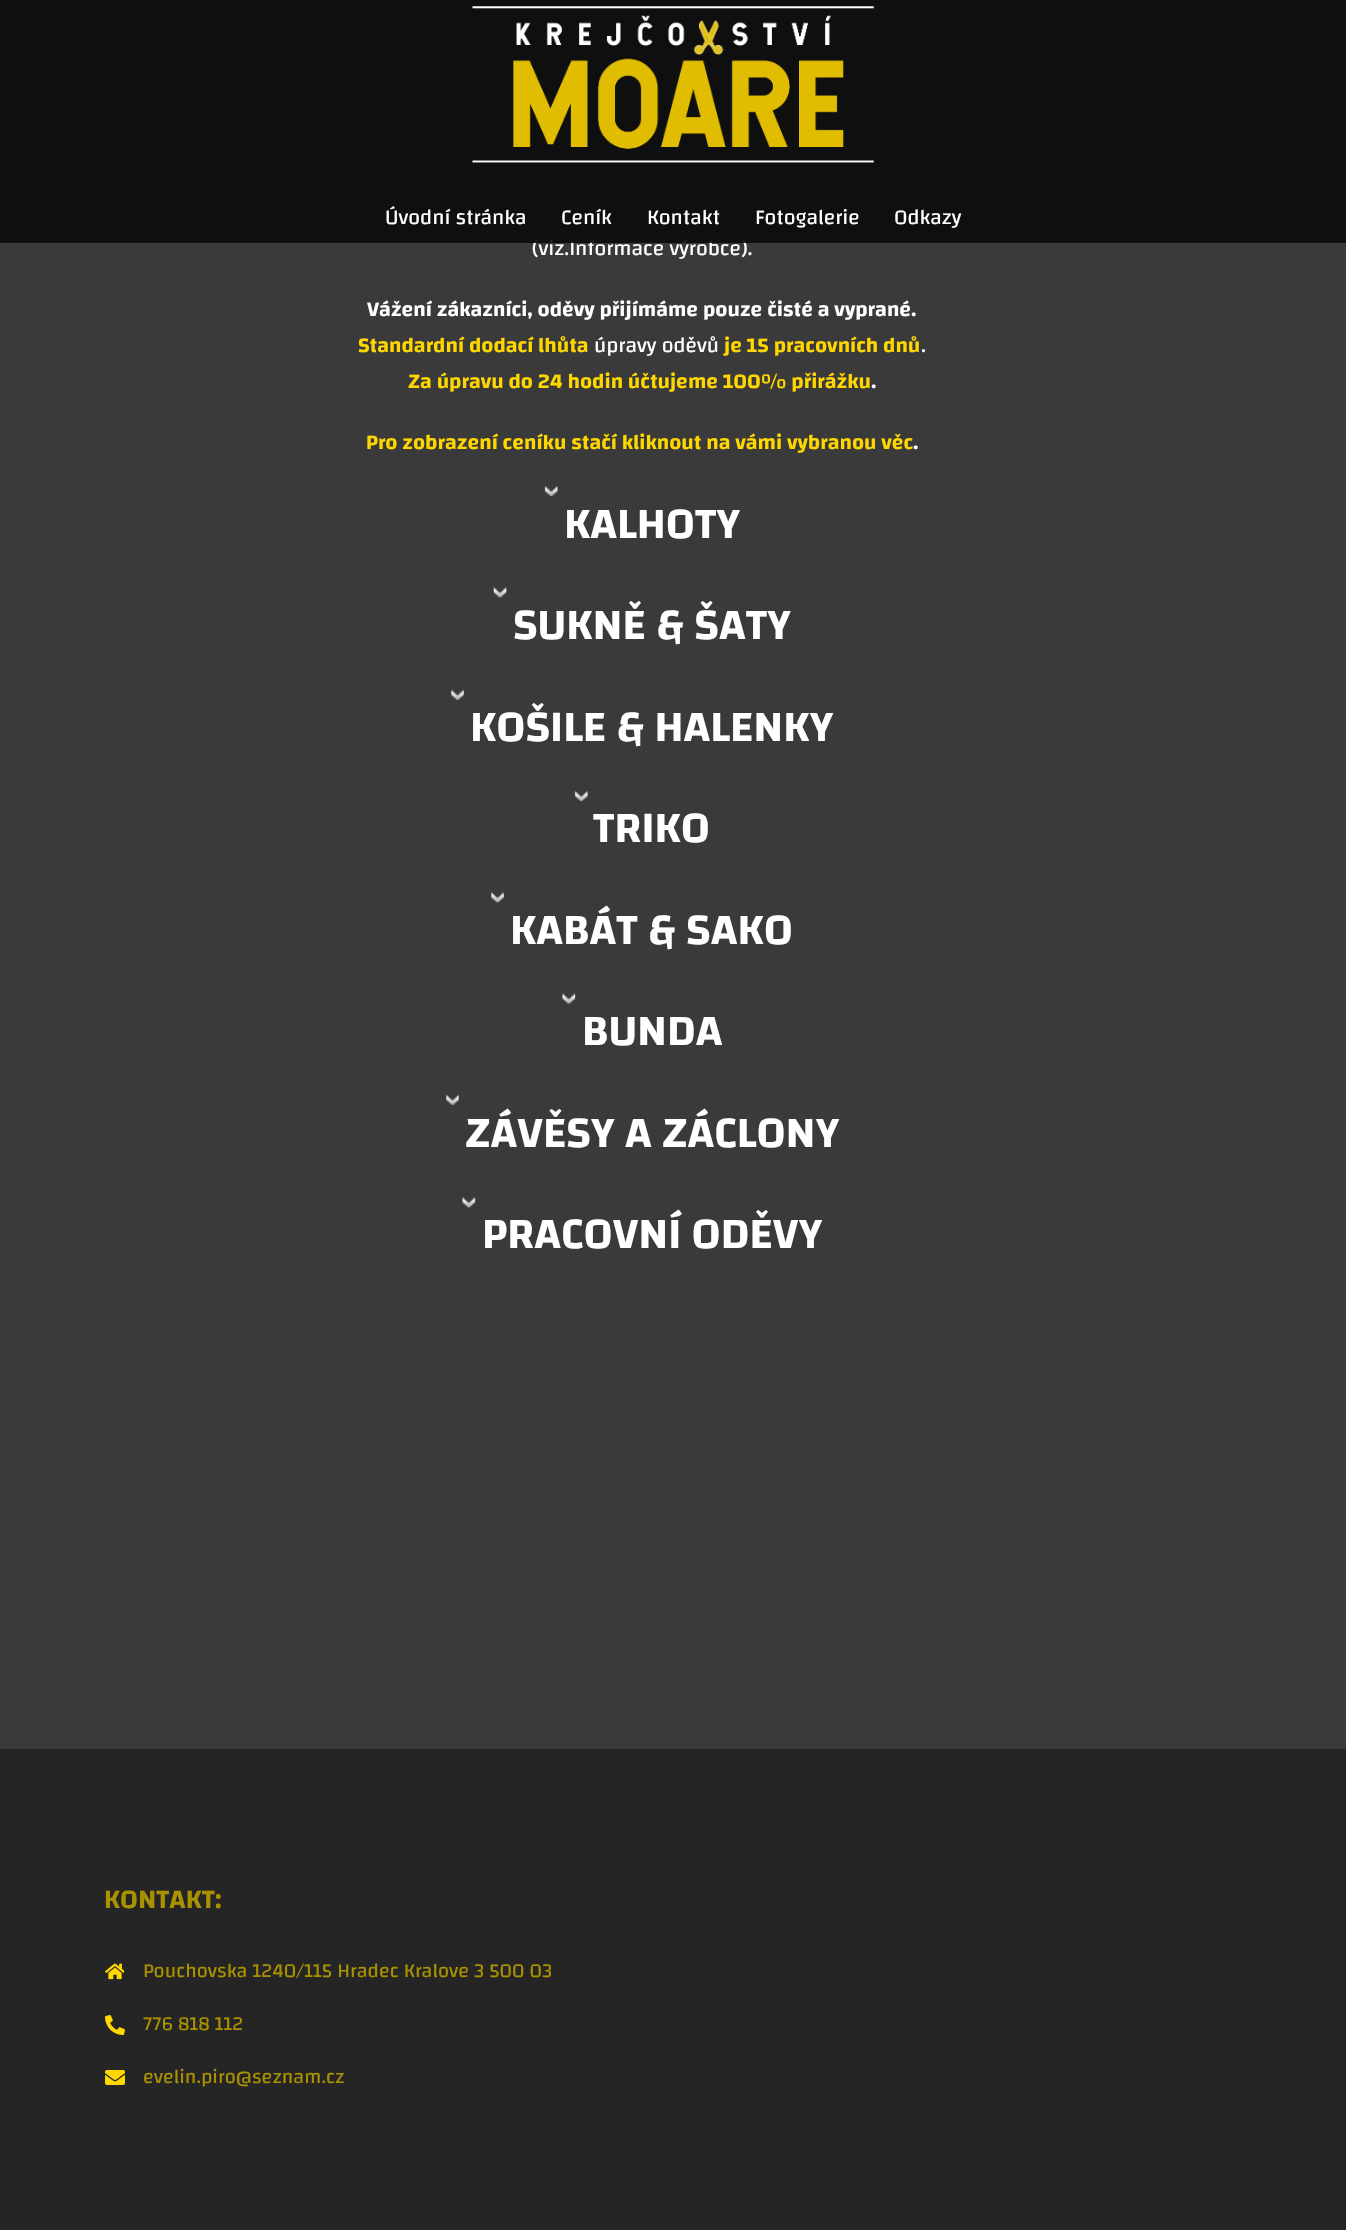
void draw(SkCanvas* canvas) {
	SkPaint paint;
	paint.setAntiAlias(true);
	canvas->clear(0xff3a3a3a);
	SkFont f1(fontMgr->matchFamilyStyle("Changa", SkFontStyle::Normal()), 21.25);
	f1.setSubpixel(true);
	paint.setColor(0xffffffff);
	canvas->drawString("(viz.Informace výrobce).", 532, 255, f1, paint);
	paint.setColor(0xe60a0a0a);
	canvas->drawRect(SkRect::MakeXYWH(0, 0, 1346, 243), paint);
	canvas->drawImageRect(SkImages::DeferredFromEncodedData(SkData::MakeFromFileName("img1.png")), SkRect::MakeXYWH(472, 6, 402, 157), SkSamplingOptions());
	paint.setColor(0xffffffff);
	canvas->drawString("Úvodní stránka", 385, 224, f1, paint);
	canvas->drawString("Ceník", 561, 224, f1, paint);
	canvas->drawString("Kontakt", 647, 224, f1, paint);
	canvas->drawString("Fotogalerie", 755, 224, f1, paint);
	canvas->drawString("Odkazy", 894, 224, f1, paint);
	SkFont f2(fontMgr->matchFamilyStyle("Changa", SkFontStyle(600, SkFontStyle::kNormal_Width, SkFontStyle::kUpright_Slant)), 21.25);
	f2.setSubpixel(true);
	canvas->drawString("Vážení zákazníci, oděvy přijímáme pouze čisté a vyprané.", 367, 316, f2, paint);
	paint.setColor(0xffffd700);
	canvas->drawString("Standardní dodací lhůta", 358, 352, f2, paint);
	paint.setColor(0xffffffff);
	canvas->drawString("úpravy oděvů", 594, 352, f1, paint);
	paint.setColor(0xffffd700);
	canvas->drawString("je 15 pracovních dnů", 724, 352, f2, paint);
	paint.setColor(0xffffffff);
	canvas->drawString(".", 921, 352, f1, paint);
	paint.setColor(0xffffd700);
	canvas->drawString("Za úpravu do 24 hodin účtujeme 100% přirážku", 408, 388, f2, paint);
	paint.setColor(0xffffffff);
	canvas->drawString(".", 871, 388, f2, paint);
	paint.setColor(0xffffd700);
	canvas->drawString("Pro zobrazení ceníku stačí kliknout na vámi vybranou věc", 366, 449, f2, paint);
	paint.setColor(0xffffffff);
	canvas->drawString(".", 913, 449, f2, paint);
	canvas->drawImageRect(SkImages::DeferredFromEncodedData(SkData::MakeFromFileName("img2.png")), SkRect::MakeXYWH(544, 486, 14, 11), SkSamplingOptions());
	SkFont f3(fontMgr->matchFamilyStyle("Changa", SkFontStyle(600, SkFontStyle::kNormal_Width, SkFontStyle::kUpright_Slant)), 45);
	f3.setSubpixel(true);
	canvas->drawString("KALHOTY", 564, 538, f3, paint);
	canvas->drawImageRect(SkImages::DeferredFromEncodedData(SkData::MakeFromFileName("img3.png")), SkRect::MakeXYWH(493, 587, 14, 11), SkSamplingOptions());
	canvas->drawString("SUKNĚ & ŠATY", 513, 639, f3, paint);
	canvas->drawImageRect(SkImages::DeferredFromEncodedData(SkData::MakeFromFileName("img4.png")), SkRect::MakeXYWH(451, 689, 13, 11), SkSamplingOptions());
	canvas->drawString("KOŠILE & HALENKY", 470, 741, f3, paint);
	canvas->drawImageRect(SkImages::DeferredFromEncodedData(SkData::MakeFromFileName("img5.png")), SkRect::MakeXYWH(574, 791, 14, 11), SkSamplingOptions());
	canvas->drawString("TRIKO", 593, 842, f3, paint);
	canvas->drawImageRect(SkImages::DeferredFromEncodedData(SkData::MakeFromFileName("img6.png")), SkRect::MakeXYWH(491, 892, 13, 11), SkSamplingOptions());
	canvas->drawString("KABÁT & SAKO", 510, 944, f3, paint);
	canvas->drawImageRect(SkImages::DeferredFromEncodedData(SkData::MakeFromFileName("img7.png")), SkRect::MakeXYWH(562, 993, 14, 11), SkSamplingOptions());
	canvas->drawString("BUNDA", 582, 1045, f3, paint);
	canvas->drawImageRect(SkImages::DeferredFromEncodedData(SkData::MakeFromFileName("img4.png")), SkRect::MakeXYWH(446, 1094, 13, 11), SkSamplingOptions());
	canvas->drawString("ZÁVĚSY A ZÁCLONY", 465, 1147, f3, paint);
	canvas->drawImageRect(SkImages::DeferredFromEncodedData(SkData::MakeFromFileName("img8.png")), SkRect::MakeXYWH(462, 1197, 14, 11), SkSamplingOptions());
	canvas->drawString("PRACOVNÍ ODĚVY", 482, 1248, f3, paint);
	paint.setColor(0xff252525);
	canvas->drawRect(SkRect::MakeXYWH(0.5, 1749.5, 1345, 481), paint);
	paint.setStroke(true);
	paint.setStrokeWidth(1);
	paint.setColor(0xff212121);
	canvas->drawRect(SkRect::MakeXYWH(0.5, 1749.5, 1345, 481), paint);
	SkFont f4(fontMgr->matchFamilyStyle("Changa", SkFontStyle(600, SkFontStyle::kNormal_Width, SkFontStyle::kUpright_Slant)), 27.5);
	f4.setSubpixel(true);
	paint.setStroke(false);
	paint.setColor(0xffaa9100);
	canvas->drawString("KONTAKT:", 104, 1908, f4, paint);
	canvas->drawImageRect(SkImages::DeferredFromEncodedData(SkData::MakeFromFileName("img9.png")), SkRect::MakeXYWH(105, 1963, 19, 17), SkSamplingOptions());
	SkFont f5(fontMgr->matchFamilyStyle("Changa", SkFontStyle::Normal()), 20);
	f5.setSubpixel(true);
	canvas->drawString("Pouchovska 1240/115 Hradec Kralove 3 500 03", 143, 1977, f5, paint);
	canvas->drawImageRect(SkImages::DeferredFromEncodedData(SkData::MakeFromFileName("img10.png")), SkRect::MakeXYWH(105, 2015, 20, 20), SkSamplingOptions());
	canvas->drawString("776 818 112", 143, 2030, f5, paint);
	canvas->drawImageRect(SkImages::DeferredFromEncodedData(SkData::MakeFromFileName("img11.png")), SkRect::MakeXYWH(105, 2070, 20, 15), SkSamplingOptions());
	canvas->drawString("evelin.piro@seznam.cz", 143, 2083, f5, paint);
}
